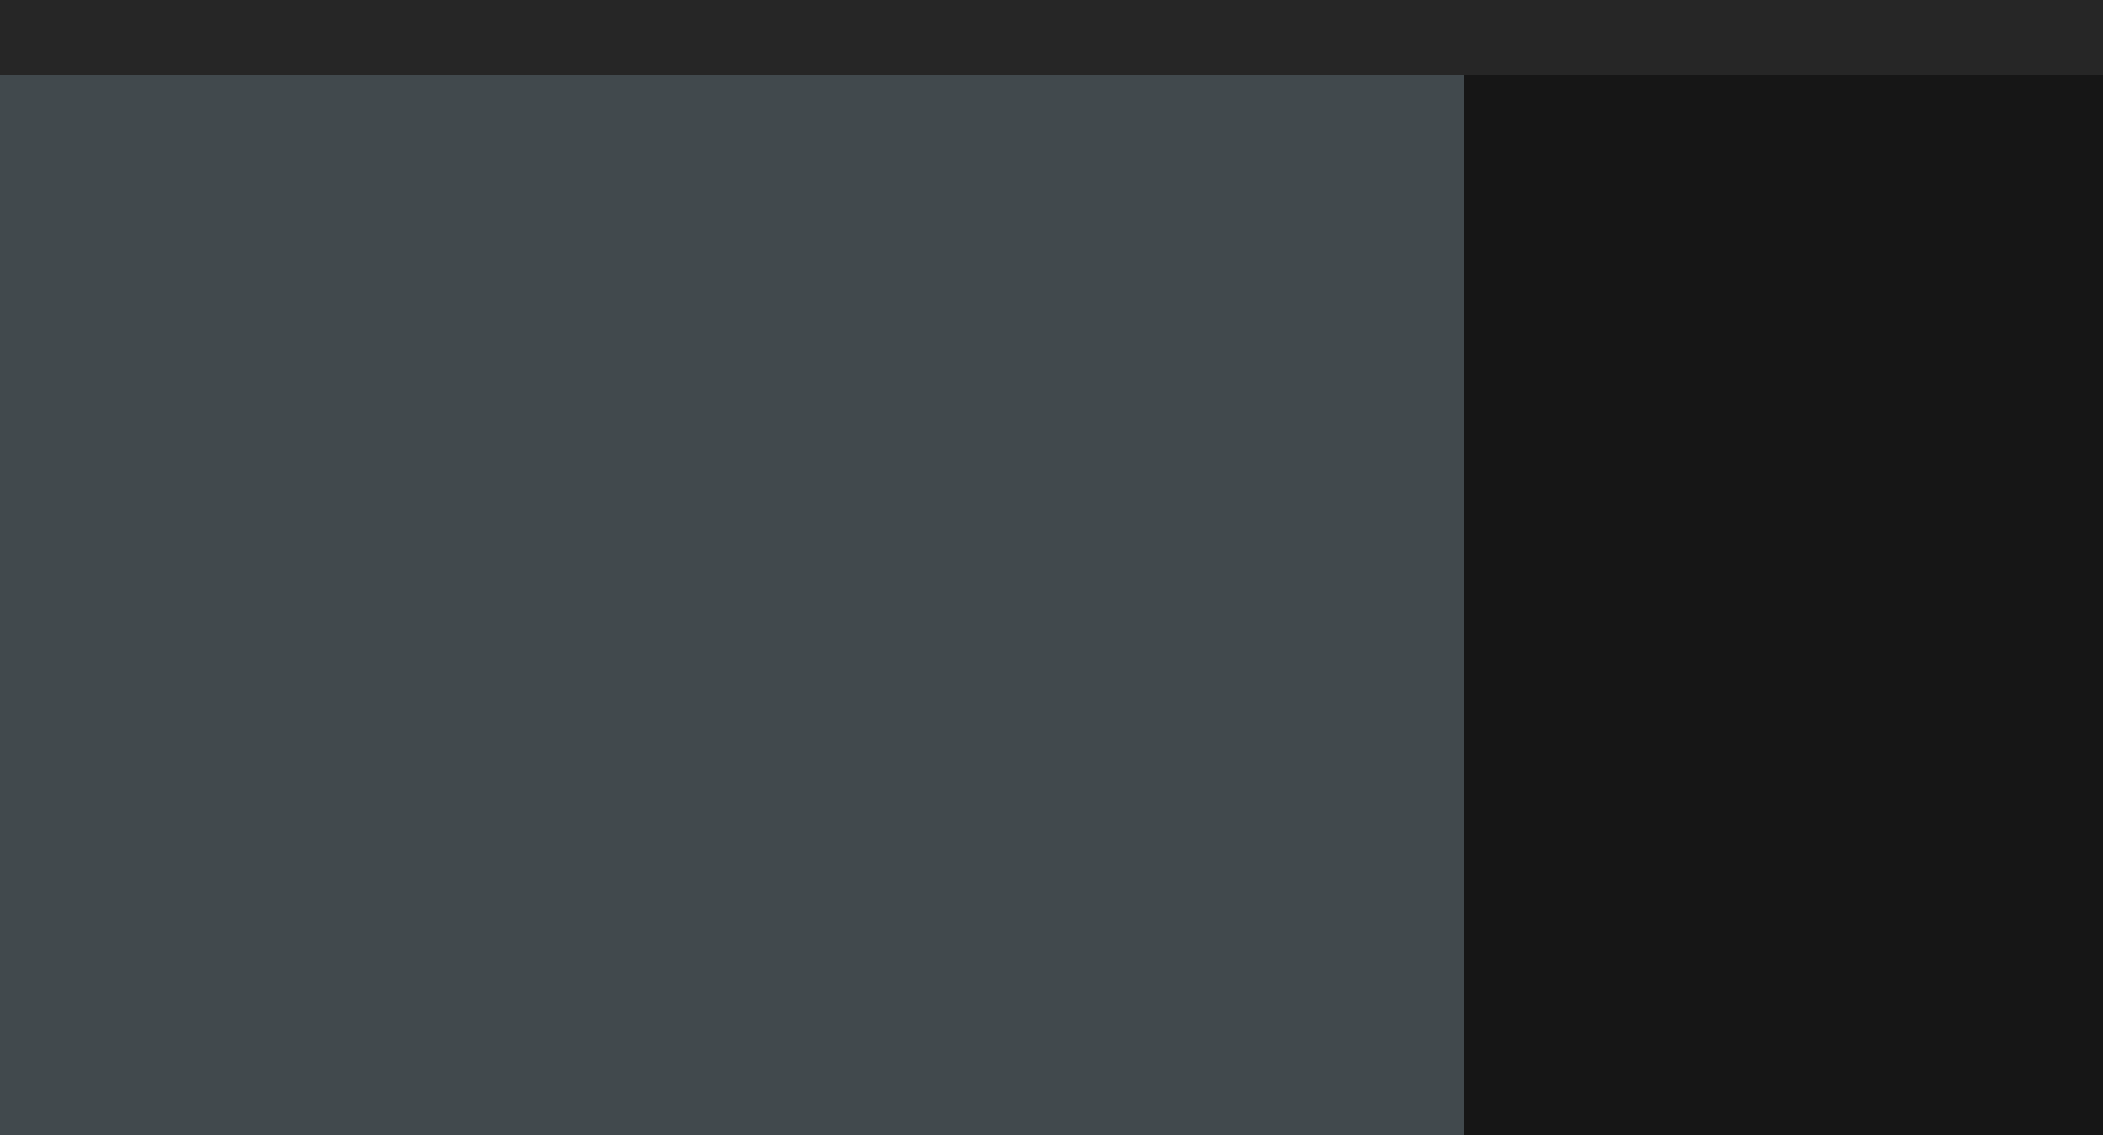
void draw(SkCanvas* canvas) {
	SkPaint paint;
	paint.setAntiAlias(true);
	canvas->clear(0xff262626);
	paint.setColor(0xff41494d);
	canvas->drawRect(SkRect::MakeXYWH(0, 75, 1464, 1060), paint);
	paint.setColor(0xff161616);
	canvas->drawRect(SkRect::MakeXYWH(1464, 75, 639, 1060), paint);
}
